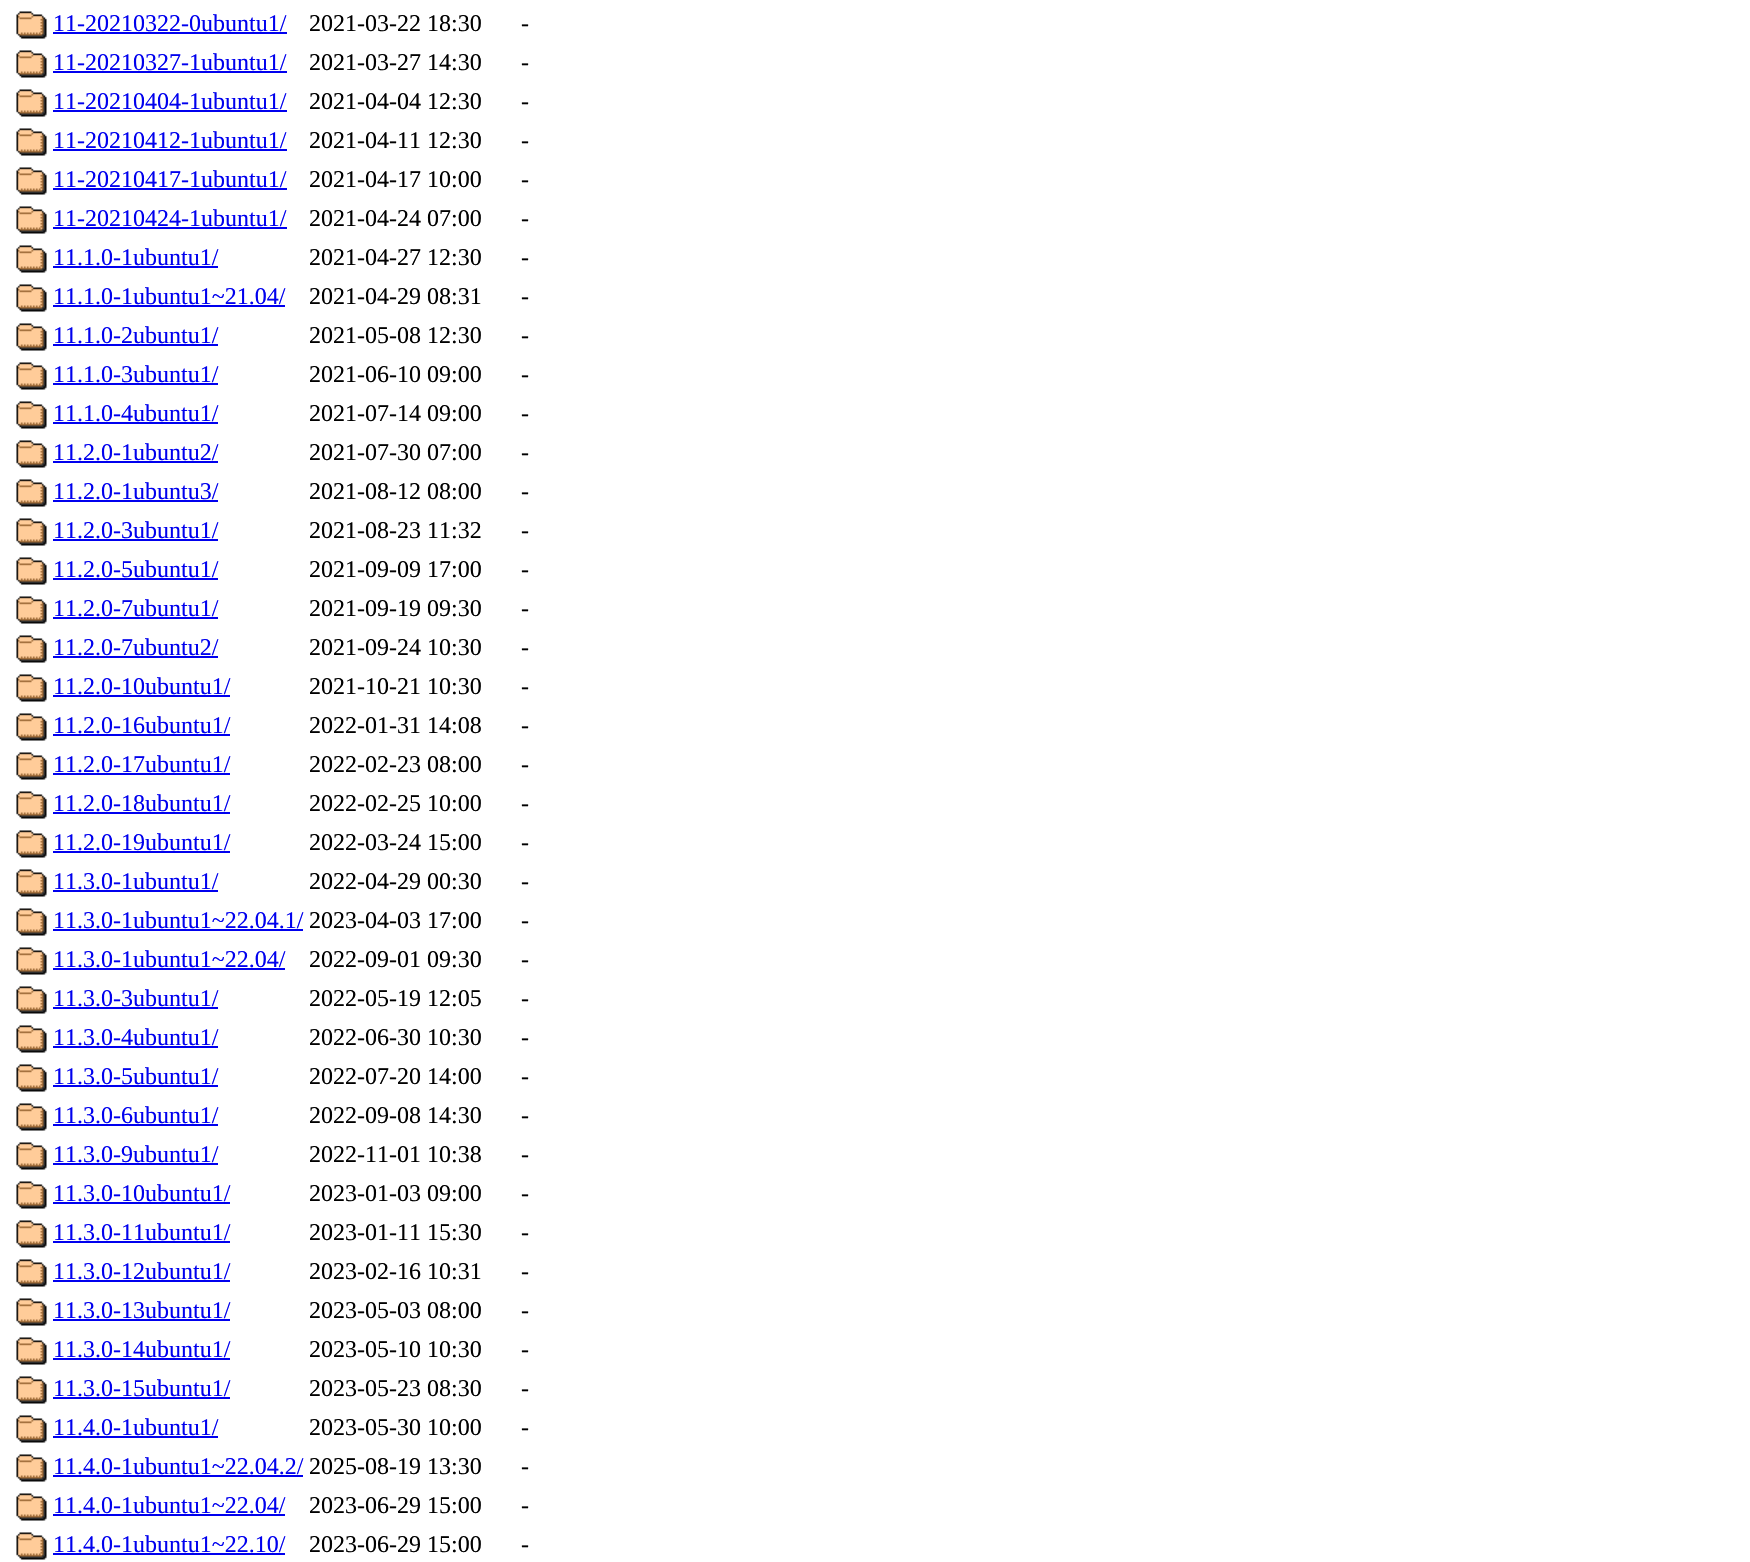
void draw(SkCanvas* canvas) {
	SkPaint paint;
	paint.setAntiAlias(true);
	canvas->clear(0xffffffff);
	canvas->drawImageRect(SkImages::DeferredFromEncodedData(SkData::MakeFromFileName("img1.png")), SkRect::MakeXYWH(16, 11, 31, 28), SkSamplingOptions());
	SkFont f1(fontMgr->matchFamilyStyle("Liberation Serif", SkFontStyle::Normal()), 24);
	f1.setSubpixel(true);
	paint.setColor(0xff0000ee);
	canvas->drawString("11-20210322-0ubuntu1/", 53, 31, f1, paint);
	canvas->drawRect(SkRect::MakeXYWH(53, 32, 234, 2), paint);
	paint.setColor(0xff000000);
	canvas->drawString("2021-03-22 18:30", 309, 31, f1, paint);
	canvas->drawString("-", 521, 31, f1, paint);
	canvas->drawImageRect(SkImages::DeferredFromEncodedData(SkData::MakeFromFileName("img1.png")), SkRect::MakeXYWH(16, 50, 31, 28), SkSamplingOptions());
	paint.setColor(0xff0000ee);
	canvas->drawString("11-20210327-1ubuntu1/", 53, 70, f1, paint);
	canvas->drawRect(SkRect::MakeXYWH(53, 71, 234, 2), paint);
	paint.setColor(0xff000000);
	canvas->drawString("2021-03-27 14:30", 309, 70, f1, paint);
	canvas->drawString("-", 521, 70, f1, paint);
	canvas->drawImageRect(SkImages::DeferredFromEncodedData(SkData::MakeFromFileName("img1.png")), SkRect::MakeXYWH(16, 89, 31, 28), SkSamplingOptions());
	paint.setColor(0xff0000ee);
	canvas->drawString("11-20210404-1ubuntu1/", 53, 109, f1, paint);
	canvas->drawRect(SkRect::MakeXYWH(53, 110, 234, 2), paint);
	paint.setColor(0xff000000);
	canvas->drawString("2021-04-04 12:30", 309, 109, f1, paint);
	canvas->drawString("-", 521, 109, f1, paint);
	canvas->drawImageRect(SkImages::DeferredFromEncodedData(SkData::MakeFromFileName("img1.png")), SkRect::MakeXYWH(16, 128, 31, 28), SkSamplingOptions());
	paint.setColor(0xff0000ee);
	canvas->drawString("11-20210412-1ubuntu1/", 53, 148, f1, paint);
	canvas->drawRect(SkRect::MakeXYWH(53, 149, 234, 2), paint);
	paint.setColor(0xff000000);
	canvas->drawString("2021-04-11 12:30", 309, 148, f1, paint);
	canvas->drawString("-", 521, 148, f1, paint);
	canvas->drawImageRect(SkImages::DeferredFromEncodedData(SkData::MakeFromFileName("img1.png")), SkRect::MakeXYWH(16, 167, 31, 28), SkSamplingOptions());
	paint.setColor(0xff0000ee);
	canvas->drawString("11-20210417-1ubuntu1/", 53, 187, f1, paint);
	canvas->drawRect(SkRect::MakeXYWH(53, 188, 234, 2), paint);
	paint.setColor(0xff000000);
	canvas->drawString("2021-04-17 10:00", 309, 187, f1, paint);
	canvas->drawString("-", 521, 187, f1, paint);
	canvas->drawImageRect(SkImages::DeferredFromEncodedData(SkData::MakeFromFileName("img1.png")), SkRect::MakeXYWH(16, 206, 31, 28), SkSamplingOptions());
	paint.setColor(0xff0000ee);
	canvas->drawString("11-20210424-1ubuntu1/", 53, 226, f1, paint);
	canvas->drawRect(SkRect::MakeXYWH(53, 227, 234, 2), paint);
	paint.setColor(0xff000000);
	canvas->drawString("2021-04-24 07:00", 309, 226, f1, paint);
	canvas->drawString("-", 521, 226, f1, paint);
	canvas->drawImageRect(SkImages::DeferredFromEncodedData(SkData::MakeFromFileName("img1.png")), SkRect::MakeXYWH(16, 245, 31, 28), SkSamplingOptions());
	paint.setColor(0xff0000ee);
	canvas->drawString("11.1.0-1ubuntu1/", 53, 265, f1, paint);
	canvas->drawRect(SkRect::MakeXYWH(53, 266, 165, 2), paint);
	paint.setColor(0xff000000);
	canvas->drawString("2021-04-27 12:30", 309, 265, f1, paint);
	canvas->drawString("-", 521, 265, f1, paint);
	canvas->drawImageRect(SkImages::DeferredFromEncodedData(SkData::MakeFromFileName("img1.png")), SkRect::MakeXYWH(16, 284, 31, 28), SkSamplingOptions());
	paint.setColor(0xff0000ee);
	canvas->drawString("11.1.0-1ubuntu1~21.04/", 53, 304, f1, paint);
	canvas->drawRect(SkRect::MakeXYWH(53, 305, 232, 2), paint);
	paint.setColor(0xff000000);
	canvas->drawString("2021-04-29 08:31", 309, 304, f1, paint);
	canvas->drawString("-", 521, 304, f1, paint);
	canvas->drawImageRect(SkImages::DeferredFromEncodedData(SkData::MakeFromFileName("img1.png")), SkRect::MakeXYWH(16, 323, 31, 28), SkSamplingOptions());
	paint.setColor(0xff0000ee);
	canvas->drawString("11.1.0-2ubuntu1/", 53, 343, f1, paint);
	canvas->drawRect(SkRect::MakeXYWH(53, 344, 165, 2), paint);
	paint.setColor(0xff000000);
	canvas->drawString("2021-05-08 12:30", 309, 343, f1, paint);
	canvas->drawString("-", 521, 343, f1, paint);
	canvas->drawImageRect(SkImages::DeferredFromEncodedData(SkData::MakeFromFileName("img1.png")), SkRect::MakeXYWH(16, 362, 31, 28), SkSamplingOptions());
	paint.setColor(0xff0000ee);
	canvas->drawString("11.1.0-3ubuntu1/", 53, 382, f1, paint);
	canvas->drawRect(SkRect::MakeXYWH(53, 383, 165, 2), paint);
	paint.setColor(0xff000000);
	canvas->drawString("2021-06-10 09:00", 309, 382, f1, paint);
	canvas->drawString("-", 521, 382, f1, paint);
	canvas->drawImageRect(SkImages::DeferredFromEncodedData(SkData::MakeFromFileName("img1.png")), SkRect::MakeXYWH(16, 401, 31, 28), SkSamplingOptions());
	paint.setColor(0xff0000ee);
	canvas->drawString("11.1.0-4ubuntu1/", 53, 421, f1, paint);
	canvas->drawRect(SkRect::MakeXYWH(53, 422, 165, 2), paint);
	paint.setColor(0xff000000);
	canvas->drawString("2021-07-14 09:00", 309, 421, f1, paint);
	canvas->drawString("-", 521, 421, f1, paint);
	canvas->drawImageRect(SkImages::DeferredFromEncodedData(SkData::MakeFromFileName("img1.png")), SkRect::MakeXYWH(16, 440, 31, 28), SkSamplingOptions());
	paint.setColor(0xff0000ee);
	canvas->drawString("11.2.0-1ubuntu2/", 53, 460, f1, paint);
	canvas->drawRect(SkRect::MakeXYWH(53, 461, 165, 2), paint);
	paint.setColor(0xff000000);
	canvas->drawString("2021-07-30 07:00", 309, 460, f1, paint);
	canvas->drawString("-", 521, 460, f1, paint);
	canvas->drawImageRect(SkImages::DeferredFromEncodedData(SkData::MakeFromFileName("img1.png")), SkRect::MakeXYWH(16, 479, 31, 28), SkSamplingOptions());
	paint.setColor(0xff0000ee);
	canvas->drawString("11.2.0-1ubuntu3/", 53, 499, f1, paint);
	canvas->drawRect(SkRect::MakeXYWH(53, 500, 165, 2), paint);
	paint.setColor(0xff000000);
	canvas->drawString("2021-08-12 08:00", 309, 499, f1, paint);
	canvas->drawString("-", 521, 499, f1, paint);
	canvas->drawImageRect(SkImages::DeferredFromEncodedData(SkData::MakeFromFileName("img1.png")), SkRect::MakeXYWH(16, 518, 31, 28), SkSamplingOptions());
	paint.setColor(0xff0000ee);
	canvas->drawString("11.2.0-3ubuntu1/", 53, 538, f1, paint);
	canvas->drawRect(SkRect::MakeXYWH(53, 539, 165, 2), paint);
	paint.setColor(0xff000000);
	canvas->drawString("2021-08-23 11:32", 309, 538, f1, paint);
	canvas->drawString("-", 521, 538, f1, paint);
	canvas->drawImageRect(SkImages::DeferredFromEncodedData(SkData::MakeFromFileName("img1.png")), SkRect::MakeXYWH(16, 557, 31, 28), SkSamplingOptions());
	paint.setColor(0xff0000ee);
	canvas->drawString("11.2.0-5ubuntu1/", 53, 577, f1, paint);
	canvas->drawRect(SkRect::MakeXYWH(53, 578, 165, 2), paint);
	paint.setColor(0xff000000);
	canvas->drawString("2021-09-09 17:00", 309, 577, f1, paint);
	canvas->drawString("-", 521, 577, f1, paint);
	canvas->drawImageRect(SkImages::DeferredFromEncodedData(SkData::MakeFromFileName("img1.png")), SkRect::MakeXYWH(16, 596, 31, 28), SkSamplingOptions());
	paint.setColor(0xff0000ee);
	canvas->drawString("11.2.0-7ubuntu1/", 53, 616, f1, paint);
	canvas->drawRect(SkRect::MakeXYWH(53, 617, 165, 2), paint);
	paint.setColor(0xff000000);
	canvas->drawString("2021-09-19 09:30", 309, 616, f1, paint);
	canvas->drawString("-", 521, 616, f1, paint);
	canvas->drawImageRect(SkImages::DeferredFromEncodedData(SkData::MakeFromFileName("img1.png")), SkRect::MakeXYWH(16, 635, 31, 28), SkSamplingOptions());
	paint.setColor(0xff0000ee);
	canvas->drawString("11.2.0-7ubuntu2/", 53, 655, f1, paint);
	canvas->drawRect(SkRect::MakeXYWH(53, 656, 165, 2), paint);
	paint.setColor(0xff000000);
	canvas->drawString("2021-09-24 10:30", 309, 655, f1, paint);
	canvas->drawString("-", 521, 655, f1, paint);
	canvas->drawImageRect(SkImages::DeferredFromEncodedData(SkData::MakeFromFileName("img1.png")), SkRect::MakeXYWH(16, 674, 31, 28), SkSamplingOptions());
	paint.setColor(0xff0000ee);
	canvas->drawString("11.2.0-10ubuntu1/", 53, 694, f1, paint);
	canvas->drawRect(SkRect::MakeXYWH(53, 695, 177, 2), paint);
	paint.setColor(0xff000000);
	canvas->drawString("2021-10-21 10:30", 309, 694, f1, paint);
	canvas->drawString("-", 521, 694, f1, paint);
	canvas->drawImageRect(SkImages::DeferredFromEncodedData(SkData::MakeFromFileName("img1.png")), SkRect::MakeXYWH(16, 713, 31, 28), SkSamplingOptions());
	paint.setColor(0xff0000ee);
	canvas->drawString("11.2.0-16ubuntu1/", 53, 733, f1, paint);
	canvas->drawRect(SkRect::MakeXYWH(53, 734, 177, 2), paint);
	paint.setColor(0xff000000);
	canvas->drawString("2022-01-31 14:08", 309, 733, f1, paint);
	canvas->drawString("-", 521, 733, f1, paint);
	canvas->drawImageRect(SkImages::DeferredFromEncodedData(SkData::MakeFromFileName("img1.png")), SkRect::MakeXYWH(16, 752, 31, 28), SkSamplingOptions());
	paint.setColor(0xff0000ee);
	canvas->drawString("11.2.0-17ubuntu1/", 53, 772, f1, paint);
	canvas->drawRect(SkRect::MakeXYWH(53, 773, 177, 2), paint);
	paint.setColor(0xff000000);
	canvas->drawString("2022-02-23 08:00", 309, 772, f1, paint);
	canvas->drawString("-", 521, 772, f1, paint);
	canvas->drawImageRect(SkImages::DeferredFromEncodedData(SkData::MakeFromFileName("img1.png")), SkRect::MakeXYWH(16, 791, 31, 28), SkSamplingOptions());
	paint.setColor(0xff0000ee);
	canvas->drawString("11.2.0-18ubuntu1/", 53, 811, f1, paint);
	canvas->drawRect(SkRect::MakeXYWH(53, 812, 177, 2), paint);
	paint.setColor(0xff000000);
	canvas->drawString("2022-02-25 10:00", 309, 811, f1, paint);
	canvas->drawString("-", 521, 811, f1, paint);
	canvas->drawImageRect(SkImages::DeferredFromEncodedData(SkData::MakeFromFileName("img1.png")), SkRect::MakeXYWH(16, 830, 31, 28), SkSamplingOptions());
	paint.setColor(0xff0000ee);
	canvas->drawString("11.2.0-19ubuntu1/", 53, 850, f1, paint);
	canvas->drawRect(SkRect::MakeXYWH(53, 851, 177, 2), paint);
	paint.setColor(0xff000000);
	canvas->drawString("2022-03-24 15:00", 309, 850, f1, paint);
	canvas->drawString("-", 521, 850, f1, paint);
	canvas->drawImageRect(SkImages::DeferredFromEncodedData(SkData::MakeFromFileName("img1.png")), SkRect::MakeXYWH(16, 869, 31, 28), SkSamplingOptions());
	paint.setColor(0xff0000ee);
	canvas->drawString("11.3.0-1ubuntu1/", 53, 889, f1, paint);
	canvas->drawRect(SkRect::MakeXYWH(53, 890, 165, 2), paint);
	paint.setColor(0xff000000);
	canvas->drawString("2022-04-29 00:30", 309, 889, f1, paint);
	canvas->drawString("-", 521, 889, f1, paint);
	canvas->drawImageRect(SkImages::DeferredFromEncodedData(SkData::MakeFromFileName("img1.png")), SkRect::MakeXYWH(16, 908, 31, 28), SkSamplingOptions());
	paint.setColor(0xff0000ee);
	canvas->drawString("11.3.0-1ubuntu1~22.04.1/", 53, 928, f1, paint);
	canvas->drawRect(SkRect::MakeXYWH(53, 929, 250, 2), paint);
	paint.setColor(0xff000000);
	canvas->drawString("2023-04-03 17:00", 309, 928, f1, paint);
	canvas->drawString("-", 521, 928, f1, paint);
	canvas->drawImageRect(SkImages::DeferredFromEncodedData(SkData::MakeFromFileName("img1.png")), SkRect::MakeXYWH(16, 947, 31, 28), SkSamplingOptions());
	paint.setColor(0xff0000ee);
	canvas->drawString("11.3.0-1ubuntu1~22.04/", 53, 967, f1, paint);
	canvas->drawRect(SkRect::MakeXYWH(53, 968, 232, 2), paint);
	paint.setColor(0xff000000);
	canvas->drawString("2022-09-01 09:30", 309, 967, f1, paint);
	canvas->drawString("-", 521, 967, f1, paint);
	canvas->drawImageRect(SkImages::DeferredFromEncodedData(SkData::MakeFromFileName("img1.png")), SkRect::MakeXYWH(16, 986, 31, 28), SkSamplingOptions());
	paint.setColor(0xff0000ee);
	canvas->drawString("11.3.0-3ubuntu1/", 53, 1006, f1, paint);
	canvas->drawRect(SkRect::MakeXYWH(53, 1007, 165, 2), paint);
	paint.setColor(0xff000000);
	canvas->drawString("2022-05-19 12:05", 309, 1006, f1, paint);
	canvas->drawString("-", 521, 1006, f1, paint);
	canvas->drawImageRect(SkImages::DeferredFromEncodedData(SkData::MakeFromFileName("img1.png")), SkRect::MakeXYWH(16, 1025, 31, 28), SkSamplingOptions());
	paint.setColor(0xff0000ee);
	canvas->drawString("11.3.0-4ubuntu1/", 53, 1045, f1, paint);
	canvas->drawRect(SkRect::MakeXYWH(53, 1046, 165, 2), paint);
	paint.setColor(0xff000000);
	canvas->drawString("2022-06-30 10:30", 309, 1045, f1, paint);
	canvas->drawString("-", 521, 1045, f1, paint);
	canvas->drawImageRect(SkImages::DeferredFromEncodedData(SkData::MakeFromFileName("img1.png")), SkRect::MakeXYWH(16, 1064, 31, 28), SkSamplingOptions());
	paint.setColor(0xff0000ee);
	canvas->drawString("11.3.0-5ubuntu1/", 53, 1084, f1, paint);
	canvas->drawRect(SkRect::MakeXYWH(53, 1085, 165, 2), paint);
	paint.setColor(0xff000000);
	canvas->drawString("2022-07-20 14:00", 309, 1084, f1, paint);
	canvas->drawString("-", 521, 1084, f1, paint);
	canvas->drawImageRect(SkImages::DeferredFromEncodedData(SkData::MakeFromFileName("img1.png")), SkRect::MakeXYWH(16, 1103, 31, 28), SkSamplingOptions());
	paint.setColor(0xff0000ee);
	canvas->drawString("11.3.0-6ubuntu1/", 53, 1123, f1, paint);
	canvas->drawRect(SkRect::MakeXYWH(53, 1124, 165, 2), paint);
	paint.setColor(0xff000000);
	canvas->drawString("2022-09-08 14:30", 309, 1123, f1, paint);
	canvas->drawString("-", 521, 1123, f1, paint);
	canvas->drawImageRect(SkImages::DeferredFromEncodedData(SkData::MakeFromFileName("img1.png")), SkRect::MakeXYWH(16, 1142, 31, 28), SkSamplingOptions());
	paint.setColor(0xff0000ee);
	canvas->drawString("11.3.0-9ubuntu1/", 53, 1162, f1, paint);
	canvas->drawRect(SkRect::MakeXYWH(53, 1163, 165, 2), paint);
	paint.setColor(0xff000000);
	canvas->drawString("2022-11-01 10:38", 309, 1162, f1, paint);
	canvas->drawString("-", 521, 1162, f1, paint);
	canvas->drawImageRect(SkImages::DeferredFromEncodedData(SkData::MakeFromFileName("img1.png")), SkRect::MakeXYWH(16, 1181, 31, 28), SkSamplingOptions());
	paint.setColor(0xff0000ee);
	canvas->drawString("11.3.0-10ubuntu1/", 53, 1201, f1, paint);
	canvas->drawRect(SkRect::MakeXYWH(53, 1202, 177, 2), paint);
	paint.setColor(0xff000000);
	canvas->drawString("2023-01-03 09:00", 309, 1201, f1, paint);
	canvas->drawString("-", 521, 1201, f1, paint);
	canvas->drawImageRect(SkImages::DeferredFromEncodedData(SkData::MakeFromFileName("img1.png")), SkRect::MakeXYWH(16, 1220, 31, 28), SkSamplingOptions());
	paint.setColor(0xff0000ee);
	canvas->drawString("11.3.0-11ubuntu1/", 53, 1240, f1, paint);
	canvas->drawRect(SkRect::MakeXYWH(53, 1241, 177, 2), paint);
	paint.setColor(0xff000000);
	canvas->drawString("2023-01-11 15:30", 309, 1240, f1, paint);
	canvas->drawString("-", 521, 1240, f1, paint);
	canvas->drawImageRect(SkImages::DeferredFromEncodedData(SkData::MakeFromFileName("img1.png")), SkRect::MakeXYWH(16, 1259, 31, 28), SkSamplingOptions());
	paint.setColor(0xff0000ee);
	canvas->drawString("11.3.0-12ubuntu1/", 53, 1279, f1, paint);
	canvas->drawRect(SkRect::MakeXYWH(53, 1280, 177, 2), paint);
	paint.setColor(0xff000000);
	canvas->drawString("2023-02-16 10:31", 309, 1279, f1, paint);
	canvas->drawString("-", 521, 1279, f1, paint);
	canvas->drawImageRect(SkImages::DeferredFromEncodedData(SkData::MakeFromFileName("img1.png")), SkRect::MakeXYWH(16, 1298, 31, 28), SkSamplingOptions());
	paint.setColor(0xff0000ee);
	canvas->drawString("11.3.0-13ubuntu1/", 53, 1318, f1, paint);
	canvas->drawRect(SkRect::MakeXYWH(53, 1319, 177, 2), paint);
	paint.setColor(0xff000000);
	canvas->drawString("2023-05-03 08:00", 309, 1318, f1, paint);
	canvas->drawString("-", 521, 1318, f1, paint);
	canvas->drawImageRect(SkImages::DeferredFromEncodedData(SkData::MakeFromFileName("img1.png")), SkRect::MakeXYWH(16, 1337, 31, 28), SkSamplingOptions());
	paint.setColor(0xff0000ee);
	canvas->drawString("11.3.0-14ubuntu1/", 53, 1357, f1, paint);
	canvas->drawRect(SkRect::MakeXYWH(53, 1358, 177, 2), paint);
	paint.setColor(0xff000000);
	canvas->drawString("2023-05-10 10:30", 309, 1357, f1, paint);
	canvas->drawString("-", 521, 1357, f1, paint);
	canvas->drawImageRect(SkImages::DeferredFromEncodedData(SkData::MakeFromFileName("img1.png")), SkRect::MakeXYWH(16, 1376, 31, 28), SkSamplingOptions());
	paint.setColor(0xff0000ee);
	canvas->drawString("11.3.0-15ubuntu1/", 53, 1396, f1, paint);
	canvas->drawRect(SkRect::MakeXYWH(53, 1397, 177, 2), paint);
	paint.setColor(0xff000000);
	canvas->drawString("2023-05-23 08:30", 309, 1396, f1, paint);
	canvas->drawString("-", 521, 1396, f1, paint);
	canvas->drawImageRect(SkImages::DeferredFromEncodedData(SkData::MakeFromFileName("img1.png")), SkRect::MakeXYWH(16, 1415, 31, 28), SkSamplingOptions());
	paint.setColor(0xff0000ee);
	canvas->drawString("11.4.0-1ubuntu1/", 53, 1435, f1, paint);
	canvas->drawRect(SkRect::MakeXYWH(53, 1436, 165, 2), paint);
	paint.setColor(0xff000000);
	canvas->drawString("2023-05-30 10:00", 309, 1435, f1, paint);
	canvas->drawString("-", 521, 1435, f1, paint);
	canvas->drawImageRect(SkImages::DeferredFromEncodedData(SkData::MakeFromFileName("img1.png")), SkRect::MakeXYWH(16, 1454, 31, 28), SkSamplingOptions());
	paint.setColor(0xff0000ee);
	canvas->drawString("11.4.0-1ubuntu1~22.04.2/", 53, 1474, f1, paint);
	canvas->drawRect(SkRect::MakeXYWH(53, 1475, 250, 2), paint);
	paint.setColor(0xff000000);
	canvas->drawString("2025-08-19 13:30", 309, 1474, f1, paint);
	canvas->drawString("-", 521, 1474, f1, paint);
	canvas->drawImageRect(SkImages::DeferredFromEncodedData(SkData::MakeFromFileName("img1.png")), SkRect::MakeXYWH(16, 1493, 31, 28), SkSamplingOptions());
	paint.setColor(0xff0000ee);
	canvas->drawString("11.4.0-1ubuntu1~22.04/", 53, 1513, f1, paint);
	canvas->drawRect(SkRect::MakeXYWH(53, 1514, 232, 2), paint);
	paint.setColor(0xff000000);
	canvas->drawString("2023-06-29 15:00", 309, 1513, f1, paint);
	canvas->drawString("-", 521, 1513, f1, paint);
	canvas->drawImageRect(SkImages::DeferredFromEncodedData(SkData::MakeFromFileName("img1.png")), SkRect::MakeXYWH(16, 1532, 31, 28), SkSamplingOptions());
	paint.setColor(0xff0000ee);
	canvas->drawString("11.4.0-1ubuntu1~22.10/", 53, 1552, f1, paint);
	canvas->drawRect(SkRect::MakeXYWH(53, 1553, 232, 2), paint);
	paint.setColor(0xff000000);
	canvas->drawString("2023-06-29 15:00", 309, 1552, f1, paint);
	canvas->drawString("-", 521, 1552, f1, paint);
}
